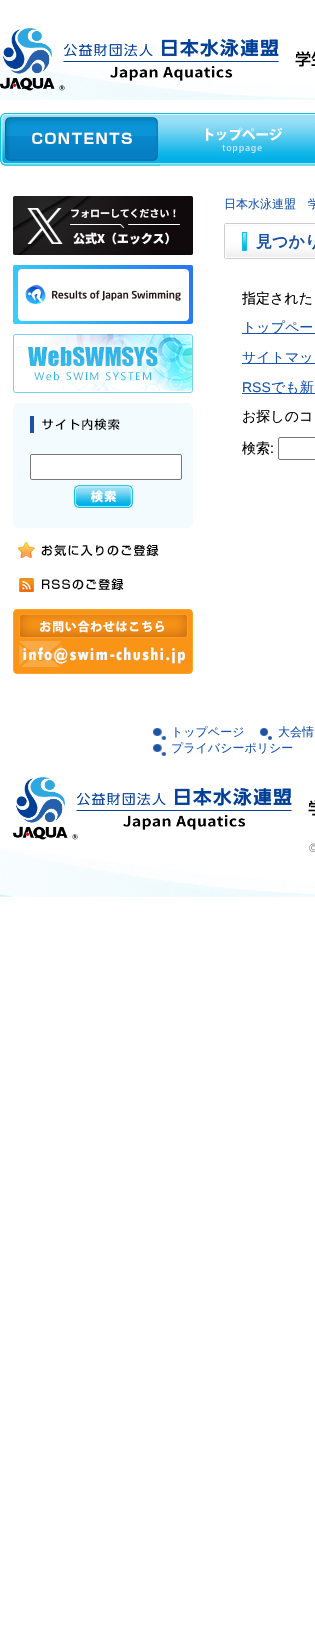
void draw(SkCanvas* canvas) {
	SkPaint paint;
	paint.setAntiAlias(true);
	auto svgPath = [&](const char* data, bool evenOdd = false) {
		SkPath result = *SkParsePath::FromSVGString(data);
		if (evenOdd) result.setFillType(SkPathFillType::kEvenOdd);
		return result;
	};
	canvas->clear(0xffffffff);
	canvas->drawImageRect(SkImages::DeferredFromEncodedData(SkData::MakeFromFileName("img1.png")), SkRect::MakeXYWH(0, 56, 315, 44), SkSamplingOptions());
	canvas->drawImageRect(SkImages::DeferredFromEncodedData(SkData::MakeFromFileName("img2.png")), SkRect::MakeXYWH(0, 28, 315, 63), SkSamplingOptions());
	canvas->drawImageRect(SkImages::DeferredFromEncodedData(SkData::MakeFromFileName("img3.png")), SkRect::MakeXYWH(0, 113, 160, 53), SkSamplingOptions());
	canvas->drawImageRect(SkImages::DeferredFromEncodedData(SkData::MakeFromFileName("img4.png")), SkRect::MakeXYWH(160, 113, 155, 9), SkSamplingOptions());
	canvas->drawImageRect(SkImages::DeferredFromEncodedData(SkData::MakeFromFileName("img5.png")), SkRect::MakeXYWH(160, 122, 155, 44), SkSamplingOptions());
	canvas->drawImageRect(SkImages::DeferredFromEncodedData(SkData::MakeFromFileName("img6.png")), SkRect::MakeXYWH(13, 196, 180, 59), SkSamplingOptions());
	canvas->drawImageRect(SkImages::DeferredFromEncodedData(SkData::MakeFromFileName("img7.png")), SkRect::MakeXYWH(13, 265, 180, 59), SkSamplingOptions());
	canvas->drawImageRect(SkImages::DeferredFromEncodedData(SkData::MakeFromFileName("img8.png")), SkRect::MakeXYWH(13, 334, 180, 59), SkSamplingOptions());
	paint.setColor(0xfff3fbfe);
	canvas->drawPath(svgPath("M17 403H189C191 403 193 407 193 412V519C193 524 191 528 189 528H17C15 528 13 524 13 519V412C13 407 15 403 17 403Z"), paint);
	canvas->drawImageRect(SkImages::DeferredFromEncodedData(SkData::MakeFromFileName("img9.png")), SkRect::MakeXYWH(30, 416, 90, 17), SkSamplingOptions());
	paint.setColor(0xffffffff);
	canvas->drawRoundRect(SkRect::MakeXYWH(30.5, 454.5, 151, 25), 1.5, 1.5, paint);
	paint.setStroke(true);
	paint.setStrokeWidth(1);
	paint.setColor(0xff767676);
	canvas->drawRoundRect(SkRect::MakeXYWH(30.5, 454.5, 151, 25), 1.5, 1.5, paint);
	canvas->drawImageRect(SkImages::DeferredFromEncodedData(SkData::MakeFromFileName("img10.png")), SkRect::MakeXYWH(74, 485, 59, 23), SkSamplingOptions());
	canvas->drawImageRect(SkImages::DeferredFromEncodedData(SkData::MakeFromFileName("img11.png")), SkRect::MakeXYWH(18, 542, 143, 17), SkSamplingOptions());
	paint.setStroke(false);
	paint.setColor(0xffffffff);
	canvas->drawRect(SkRect::MakeXYWH(42, 558, 119, 1), paint);
	canvas->drawImageRect(SkImages::DeferredFromEncodedData(SkData::MakeFromFileName("img12.png")), SkRect::MakeXYWH(19, 578, 107, 15), SkSamplingOptions());
	canvas->drawRect(SkRect::MakeXYWH(41, 592, 85, 1), paint);
	canvas->drawImageRect(SkImages::DeferredFromEncodedData(SkData::MakeFromFileName("img13.png")), SkRect::MakeXYWH(13, 609, 180, 65), SkSamplingOptions());
	SkFont f1(fontMgr->matchFamilyStyle("WenQuanYi Zen Hei", SkFontStyle(500, SkFontStyle::kNormal_Width, SkFontStyle::kUpright_Slant)), 12);
	f1.setSubpixel(true);
	paint.setColor(0xff1754af);
	canvas->drawString("日本水泳連盟　学", 224, 208, f1, paint);
	canvas->drawImageRect(SkImages::DeferredFromEncodedData(SkData::MakeFromFileName("img14.png")), SkRect::MakeXYWH(224, 223, 91, 36), SkSamplingOptions());
	SkFont f2(fontMgr->matchFamilyStyle("WenQuanYi Zen Hei", SkFontStyle::Bold()), 16);
	f2.setSubpixel(true);
	paint.setColor(0xff1a51a4);
	canvas->drawString("見つかり", 256, 247, f2, paint);
	SkFont f3(fontMgr->matchFamilyStyle("WenQuanYi Zen Hei", SkFontStyle(500, SkFontStyle::kNormal_Width, SkFontStyle::kUpright_Slant)), 14);
	f3.setSubpixel(true);
	paint.setColor(0xff000000);
	canvas->drawString("指定された", 242, 303, f3, paint);
	paint.setColor(0xff1754af);
	canvas->drawRect(SkRect::MakeXYWH(242, 333, 73, 1), paint);
	canvas->drawString("トップペー", 242, 332, f3, paint);
	canvas->drawRect(SkRect::MakeXYWH(242, 363, 73, 1), paint);
	canvas->drawString("サイトマッ", 242, 362, f3, paint);
	SkFont f4(fontMgr->matchFamilyStyle("Liberation Sans", SkFontStyle::Normal()), 14);
	f4.setSubpixel(true);
	canvas->drawString("RSS", 242, 392, f4, paint);
	canvas->drawRect(SkRect::MakeXYWH(242, 393, 73, 1), paint);
	canvas->drawString("でも新", 271, 392, f3, paint);
	paint.setColor(0xff000000);
	canvas->drawString("お探しのコ", 242, 421, f3, paint);
	canvas->drawString("検索", 242, 453, f3, paint);
	canvas->drawString(":", 270, 453, f4, paint);
	paint.setStroke(true);
	paint.setColor(0xff767676);
	canvas->drawRoundRect(SkRect::MakeXYWH(278.5, 437.5, 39, 22), 1.5, 1.5, paint);
	canvas->drawImageRect(SkImages::DeferredFromEncodedData(SkData::MakeFromFileName("img15.png")), SkRect::MakeXYWH(0, 848, 315, 49), SkSamplingOptions());
	canvas->drawImageRect(SkImages::DeferredFromEncodedData(SkData::MakeFromFileName("img16.png")), SkRect::MakeXYWH(153, 728, 13, 12), SkSamplingOptions());
	paint.setStroke(false);
	paint.setColor(0xff1754af);
	canvas->drawString("トップページ", 171, 736, f1, paint);
	canvas->drawImageRect(SkImages::DeferredFromEncodedData(SkData::MakeFromFileName("img17.png")), SkRect::MakeXYWH(260, 728, 12, 12), SkSamplingOptions());
	canvas->drawString("大会情", 278, 736, f1, paint);
	canvas->drawImageRect(SkImages::DeferredFromEncodedData(SkData::MakeFromFileName("img16.png")), SkRect::MakeXYWH(153, 744, 13, 12), SkSamplingOptions());
	canvas->drawString("プライバシーポリシー", 171, 752, f1, paint);
	canvas->drawImageRect(SkImages::DeferredFromEncodedData(SkData::MakeFromFileName("img18.png")), SkRect::MakeXYWH(13, 777, 302, 63), SkSamplingOptions());
	SkFont f5(fontMgr->matchFamilyStyle("Liberation Sans", SkFontStyle::Normal()), 12);
	f5.setSubpixel(true);
	paint.setColor(0xff939393);
	canvas->drawString("©", 309, 852, f5, paint);
}
